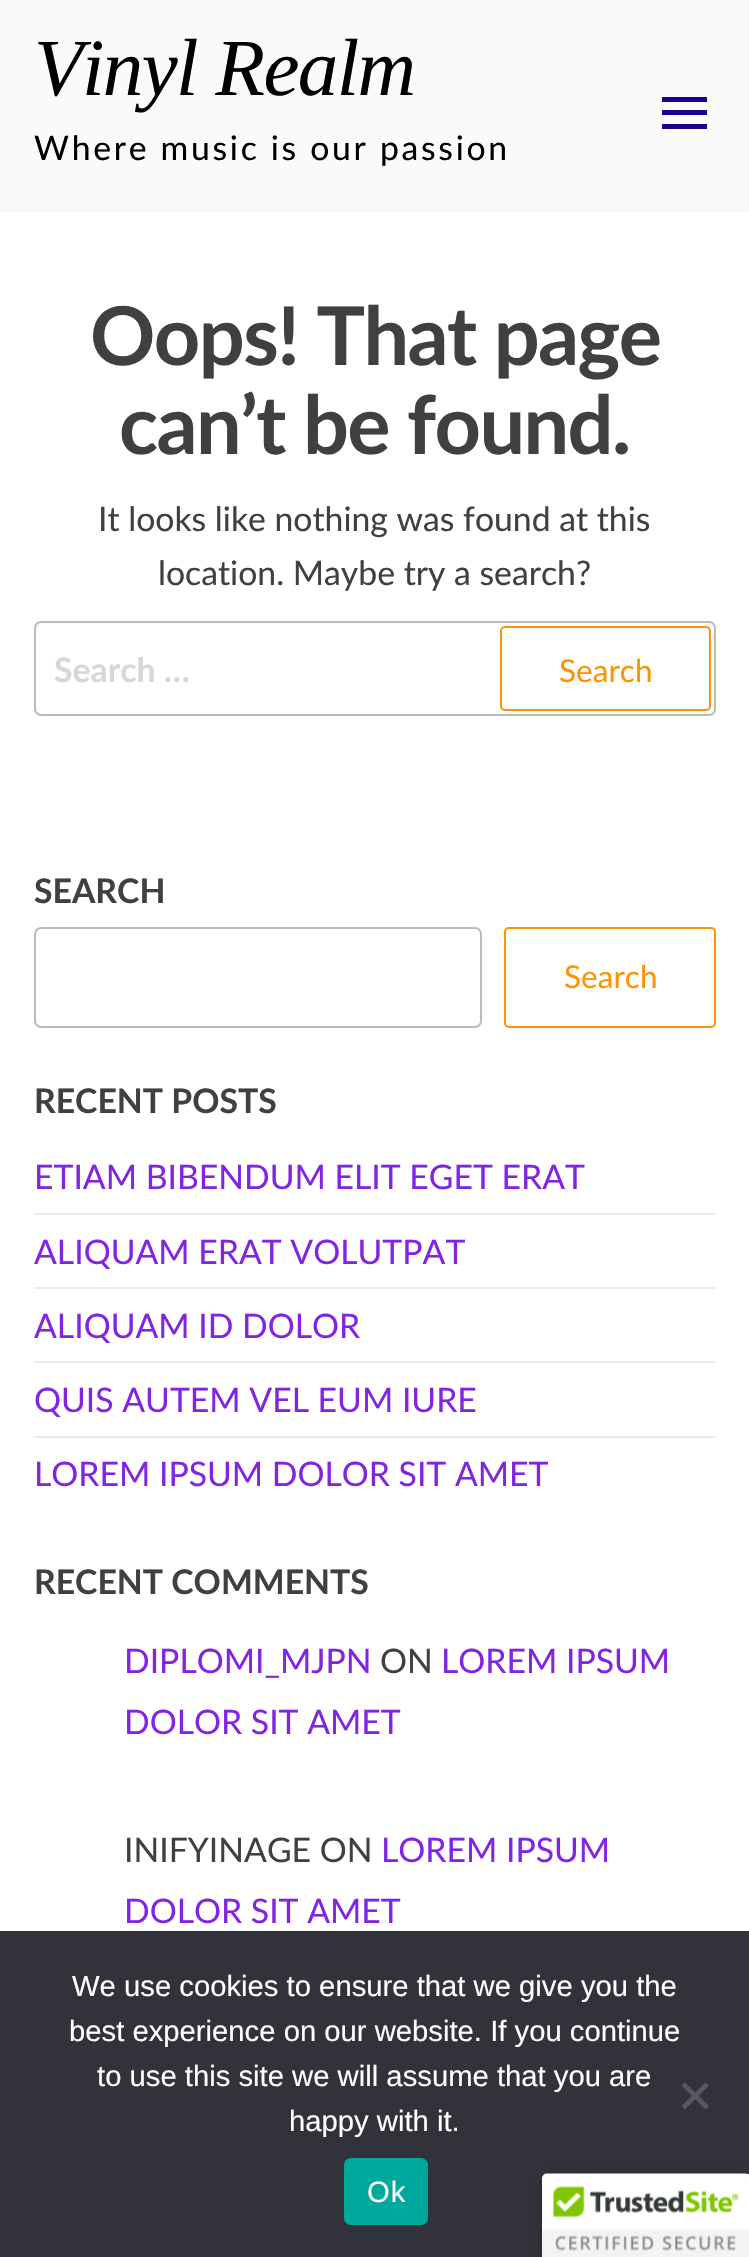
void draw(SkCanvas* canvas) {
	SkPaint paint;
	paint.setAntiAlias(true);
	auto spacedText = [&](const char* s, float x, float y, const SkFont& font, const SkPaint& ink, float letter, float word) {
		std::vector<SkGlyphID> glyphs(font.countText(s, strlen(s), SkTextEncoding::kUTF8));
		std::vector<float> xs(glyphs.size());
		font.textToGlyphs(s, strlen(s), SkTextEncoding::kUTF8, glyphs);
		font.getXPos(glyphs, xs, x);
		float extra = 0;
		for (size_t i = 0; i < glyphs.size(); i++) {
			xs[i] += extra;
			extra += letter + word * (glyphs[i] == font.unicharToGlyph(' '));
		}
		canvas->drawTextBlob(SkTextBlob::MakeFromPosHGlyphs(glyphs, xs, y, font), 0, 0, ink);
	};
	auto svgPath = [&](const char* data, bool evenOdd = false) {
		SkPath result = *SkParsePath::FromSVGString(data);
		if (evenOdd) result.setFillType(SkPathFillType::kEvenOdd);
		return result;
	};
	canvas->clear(0xffffffff);
	paint.setColor(0xfffafafa);
	canvas->drawRect(SkRect::MakeXYWH(0, 0, 749, 212), paint);
	paint.setColor(0xfff6f6f6);
	canvas->drawRect(SkRect::MakeXYWH(0, 209, 749, 2), paint);
	SkFont f1(fontMgr->matchFamilyStyle("Liberation Serif", SkFontStyle::Italic()), 81);
	f1.setSubpixel(true);
	paint.setColor(0xff000000);
	spacedText("Vinyl Realm", 34, 95, f1, paint, -1.6, 0);
	SkFont f2(fontMgr->matchFamilyStyle("Lato", SkFontStyle::Normal()), 33.75);
	f2.setSubpixel(true);
	spacedText("Where music is our passion", 34, 160, f2, paint, 2.7, 0);
	paint.setColor(0xff18048c);
	canvas->drawRect(SkRect::MakeXYWH(662, 110, 45, 5), paint);
	canvas->drawRect(SkRect::MakeXYWH(662, 97, 45, 5), paint);
	canvas->drawRect(SkRect::MakeXYWH(662, 124, 45, 5), paint);
	SkFont f3(fontMgr->matchFamilyStyle("Lato", SkFontStyle::Bold()), 81);
	f3.setSubpixel(true);
	paint.setColor(0xff404040);
	spacedText("Oops! That page", 90, 365, f3, paint, -1.6, 0);
	spacedText("can’t be found.", 119, 454, f3, paint, -1.6, 0);
	canvas->drawString("It looks like nothing was found at this", 98, 531, f2, paint);
	canvas->drawString("location. Maybe try a search?", 158, 585, f2, paint);
	paint.setStroke(true);
	paint.setStrokeWidth(2);
	paint.setColor(0xffbbbbbb);
	canvas->drawRoundRect(SkRect::MakeXYWH(35, 622, 680, 93), 6, 6, paint);
	SkFont f4(fontMgr->matchFamilyStyle("Lato", SkFontStyle::Bold()), 33.75);
	f4.setSubpixel(true);
	paint.setStroke(false);
	paint.setColor(0xffd7d7d7);
	canvas->drawString("Search …", 54, 682, f4, paint);
	paint.setStroke(true);
	paint.setColor(0xffff9200);
	canvas->drawRoundRect(SkRect::MakeXYWH(501, 627, 209, 83), 4, 4, paint);
	SkFont f5(fontMgr->matchFamilyStyle("Lato", SkFontStyle::Normal()), 31.5);
	f5.setSubpixel(true);
	paint.setStroke(false);
	canvas->drawString("Search", 559, 682, f5, paint);
	paint.setColor(0xff404040);
	canvas->drawString("SEARCH", 34, 903, f4, paint);
	paint.setStroke(true);
	paint.setColor(0xffbbbbbb);
	canvas->drawRoundRect(SkRect::MakeXYWH(35, 928, 446, 99), 6, 6, paint);
	paint.setColor(0xffff9200);
	canvas->drawRoundRect(SkRect::MakeXYWH(505, 928, 210, 99), 4, 4, paint);
	paint.setStroke(false);
	canvas->drawString("Search", 564, 988, f5, paint);
	paint.setColor(0xff404040);
	canvas->drawString("RECENT POSTS", 34, 1113, f4, paint);
	paint.setColor(0xffebebeb);
	canvas->drawRect(SkRect::MakeXYWH(34, 1213, 682, 2), paint);
	paint.setColor(0xff8224e3);
	canvas->drawString("ETIAM BIBENDUM ELIT EGET ERAT", 34, 1189, f2, paint);
	paint.setColor(0xffebebeb);
	canvas->drawRect(SkRect::MakeXYWH(34, 1287, 682, 2), paint);
	paint.setColor(0xff8224e3);
	canvas->drawString("ALIQUAM ERAT VOLUTPAT", 34, 1264, f2, paint);
	paint.setColor(0xffebebeb);
	canvas->drawRect(SkRect::MakeXYWH(34, 1361, 682, 2), paint);
	paint.setColor(0xff8224e3);
	canvas->drawString("ALIQUAM ID DOLOR", 34, 1338, f2, paint);
	paint.setColor(0xffebebeb);
	canvas->drawRect(SkRect::MakeXYWH(34, 1436, 682, 2), paint);
	paint.setColor(0xff8224e3);
	canvas->drawString("QUIS AUTEM VEL EUM IURE", 34, 1412, f2, paint);
	canvas->drawString("LOREM IPSUM DOLOR SIT AMET", 34, 1486, f2, paint);
	paint.setColor(0xff404040);
	canvas->drawString("RECENT COMMENTS", 34, 1594, f4, paint);
	paint.setColor(0xff8224e3);
	canvas->drawString("DIPLOMI_MJPN", 124, 1673, f2, paint);
	paint.setColor(0xff404040);
	canvas->drawString("ON", 380, 1673, f2, paint);
	paint.setColor(0xff8224e3);
	canvas->drawString("LOREM IPSUM", 441, 1673, f2, paint);
	canvas->drawString("DOLOR SIT AMET", 124, 1734, f2, paint);
	paint.setColor(0xff404040);
	canvas->drawString("INIFYINAGE ON", 124, 1862, f2, paint);
	paint.setColor(0xff8224e3);
	canvas->drawString("LOREM IPSUM", 381, 1862, f2, paint);
	canvas->drawString("DOLOR SIT AMET", 124, 1923, f2, paint);
	paint.setColor(0xff32323a);
	canvas->drawRect(SkRect::MakeXYWH(0, 1931, 749, 326), paint);
	SkFont f6(fontMgr->matchFamilyStyle("Liberation Sans", SkFontStyle::Normal()), 29.25);
	f6.setSubpixel(true);
	paint.setColor(0xffffffff);
	canvas->drawString("We use cookies to ensure that we give you the", 72, 1996, f6, paint);
	canvas->drawString("best experience on our website. If you continue", 69, 2041, f6, paint);
	canvas->drawString("to use this site we will assume that you are", 97, 2086, f6, paint);
	canvas->drawString("happy with it.", 289, 2131, f6, paint);
	paint.setColor(0xff59595d);
	canvas->drawPath(svgPath("M705.5 2082.5L709 2085.5L685 2109.5L681.5 2106Z"), paint);
	canvas->drawPath(svgPath("M681.5 2085.5L685 2082.5L709 2106L705.5 2109.5Z"), paint);
	paint.setColor(0xff00a99d);
	canvas->drawRoundRect(SkRect::MakeXYWH(344, 2158, 84, 67), 7, 7, paint);
	paint.setColor(0xffffffff);
	spacedText("Ok", 367, 2202, f6, paint, 1, 0);
	paint.setColor(0x33000000);
	paint.setMaskFilter(SkMaskFilter::MakeBlur(kNormal_SkBlurStyle, 5.5));
	canvas->drawRoundRect(SkRect::MakeXYWH(542, 2174, 207, 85), 5, 5, paint);
	paint.setMaskFilter(nullptr);
	paint.setColor(0xffffffff);
	canvas->drawPath(svgPath("M547 2174H749V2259H542V2179C542 2176 544 2174 547 2174Z"), paint);
	canvas->drawImageRect(SkImages::DeferredFromEncodedData(SkData::MakeFromFileName("img1.png")), SkRect::MakeXYWH(542, 2173, 207, 84), SkSamplingOptions());
}
